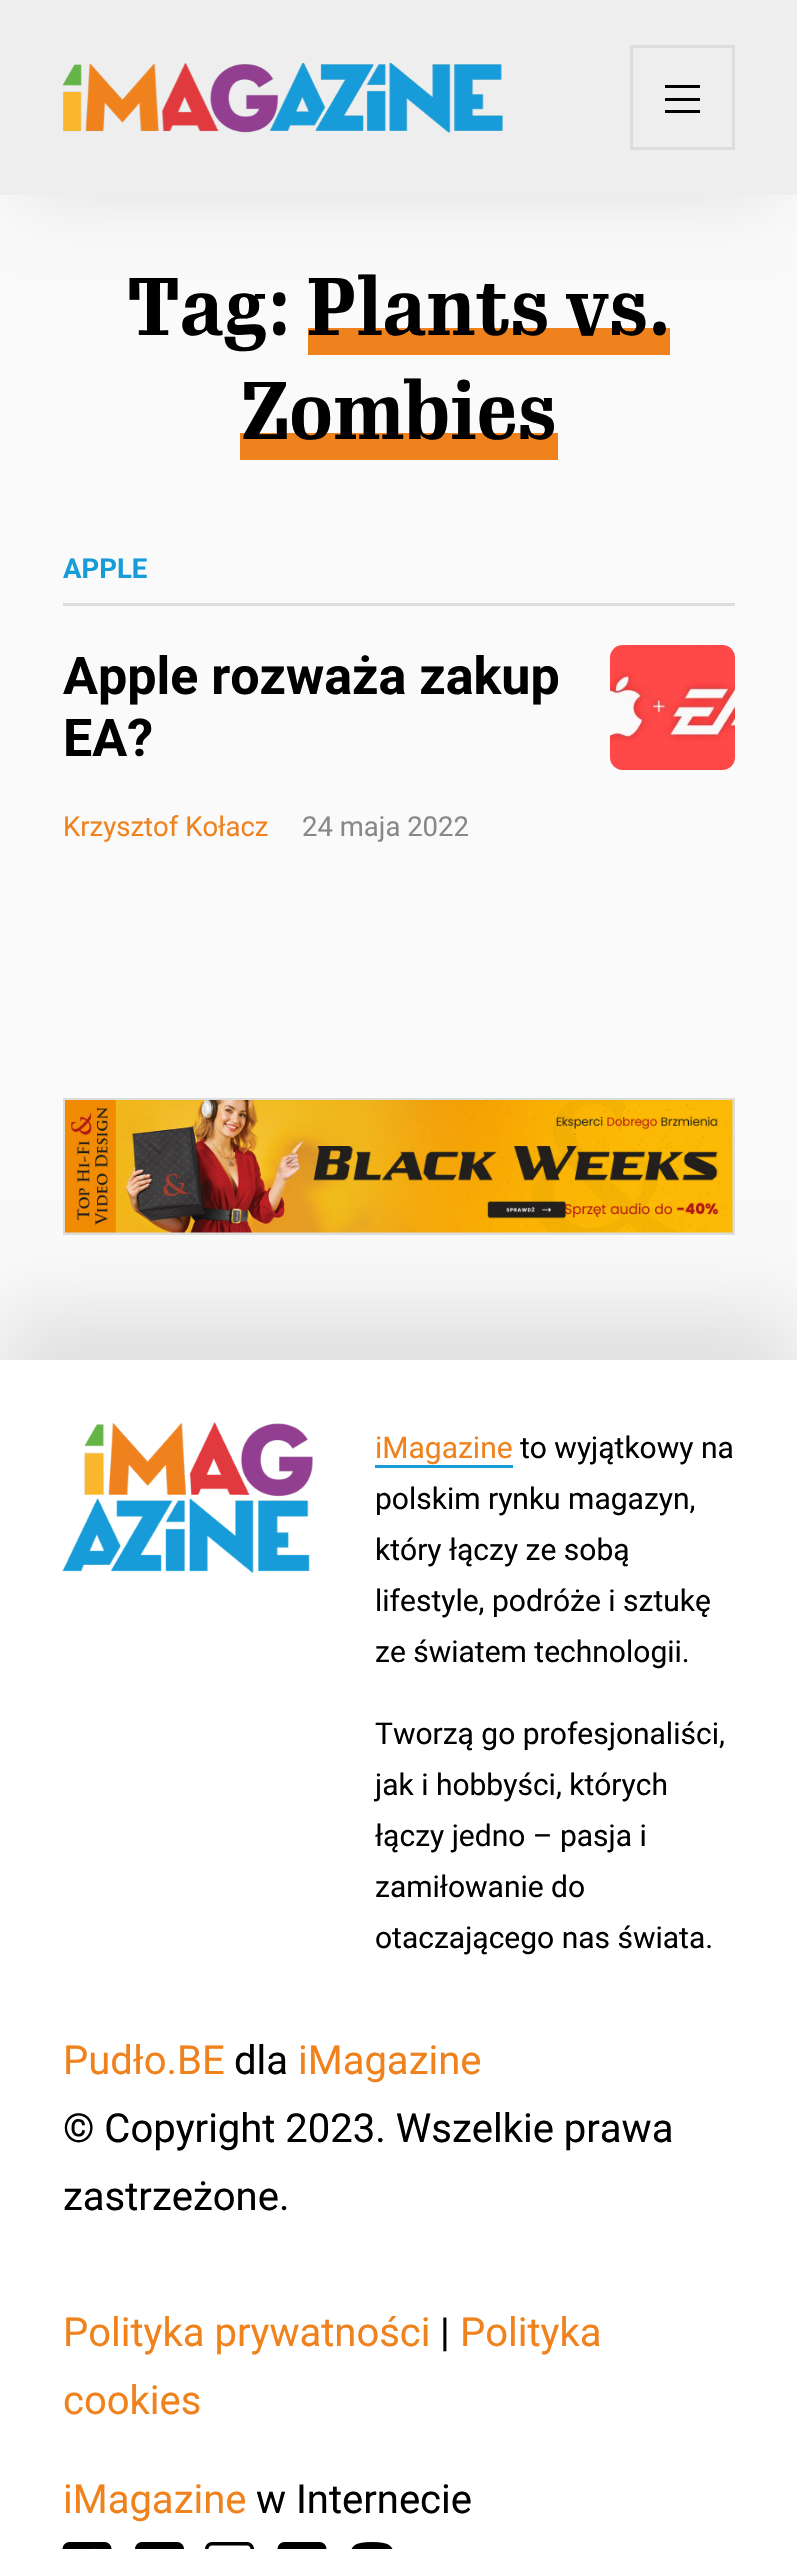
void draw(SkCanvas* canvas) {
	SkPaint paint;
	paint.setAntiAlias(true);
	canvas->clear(0xfffafafa);
	paint.setColor(0x1a000000);
	paint.setMaskFilter(SkMaskFilter::MakeBlur(kNormal_SkBlurStyle, 37.5));
	canvas->drawRect(SkRect::MakeXYWH(25, 50, 748, 145), paint);
	paint.setMaskFilter(nullptr);
	paint.setColor(0xffeeeeee);
	canvas->drawRect(SkRect::MakeXYWH(0, 0, 797, 195), paint);
	canvas->drawImageRect(SkImages::DeferredFromEncodedData(SkData::MakeFromFileName("img1.png")), SkRect::MakeXYWH(63, 63, 440, 70), SkSamplingOptions());
	paint.setStroke(true);
	paint.setStrokeWidth(3);
	paint.setColor(0xffdddddd);
	canvas->drawRect(SkRect::MakeXYWH(631.5, 46.5, 102, 102), paint);
	paint.setStroke(false);
	paint.setColor(0xff000000);
	canvas->drawRect(SkRect::MakeXYWH(665, 110, 35, 3), paint);
	canvas->drawRect(SkRect::MakeXYWH(665, 85, 35, 3), paint);
	canvas->drawRect(SkRect::MakeXYWH(665, 98, 35, 3), paint);
	SkFont f1(fontMgr->matchFamilyStyle("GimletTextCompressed", SkFontStyle::Bold()), 80);
	f1.setSubpixel(true);
	canvas->drawString("Tag:", 127, 335, f1, paint);
	paint.setColor(0xfff0821e);
	canvas->drawRect(SkRect::MakeXYWH(308, 328, 362, 27), paint);
	paint.setColor(0xff000000);
	canvas->drawString("Plants vs.", 306, 335, f1, paint);
	paint.setColor(0xfff0821e);
	canvas->drawRect(SkRect::MakeXYWH(240, 433, 318, 27), paint);
	paint.setColor(0xff000000);
	canvas->drawString("Zombies", 241, 439, f1, paint);
	paint.setColor(0xffdddddd);
	canvas->drawRect(SkRect::MakeXYWH(63, 603, 672, 3), paint);
	SkFont f2(fontMgr->matchFamilyStyle("Roboto", SkFontStyle::Bold()), 27.5);
	f2.setSubpixel(true);
	paint.setColor(0xff179cd9);
	canvas->drawString("APPLE", 63, 578, f2, paint);
	SkFont f3(fontMgr->matchFamilyStyle("Roboto", SkFontStyle::Bold()), 52);
	f3.setSubpixel(true);
	paint.setColor(0xff000000);
	canvas->drawString("Apple rozważa zakup", 63, 694, f3, paint);
	canvas->drawString("EA?", 63, 756, f3, paint);
	SkFont f4(fontMgr->matchFamilyStyle("Roboto", SkFontStyle::Normal()), 27.5);
	f4.setSubpixel(true);
	paint.setColor(0xfff0821e);
	canvas->drawString("Krzysztof Kołacz", 63, 836, f4, paint);
	paint.setColor(0xff888888);
	canvas->drawString("24 maja 2022", 302, 836, f4, paint);
	canvas->drawImageRect(SkImages::DeferredFromEncodedData(SkData::MakeFromFileName("img2.png")), SkRect::MakeXYWH(610, 645, 125, 125), SkSamplingOptions());
	paint.setColor(0x1a000000);
	paint.setMaskFilter(SkMaskFilter::MakeBlur(kNormal_SkBlurStyle, 37.5));
	canvas->drawRect(SkRect::MakeXYWH(0, 1310, 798, 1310), paint);
	paint.setMaskFilter(nullptr);
	paint.setStroke(true);
	paint.setColor(0xffdddddd);
	canvas->drawRect(SkRect::MakeXYWH(64.5, 1099.5, 669, 134), paint);
	canvas->drawImageRect(SkImages::DeferredFromEncodedData(SkData::MakeFromFileName("img3.png")), SkRect::MakeXYWH(65, 1100, 668, 133), SkSamplingOptions());
	paint.setStroke(false);
	paint.setColor(0xffffffff);
	canvas->drawRect(SkRect::MakeXYWH(0, 1360, 797, 1189), paint);
	canvas->drawImageRect(SkImages::DeferredFromEncodedData(SkData::MakeFromFileName("img4.png")), SkRect::MakeXYWH(62, 1422, 251, 151), SkSamplingOptions());
	SkFont f5(fontMgr->matchFamilyStyle("Roboto", SkFontStyle::Normal()), 30);
	f5.setSubpixel(true);
	paint.setColor(0xfff0821e);
	canvas->drawString("iMagazine", 375, 1458, f5, paint);
	paint.setColor(0xff179cd9);
	canvas->drawRect(SkRect::MakeXYWH(375, 1465, 138, 3), paint);
	paint.setColor(0xff000000);
	canvas->drawString("to wyjątkowy na", 520, 1458, f5, paint);
	canvas->drawString("polskim rynku magazyn,", 375, 1509, f5, paint);
	canvas->drawString("który łączy ze sobą", 375, 1560, f5, paint);
	canvas->drawString("lifestyle, podróże i sztukę", 375, 1611, f5, paint);
	canvas->drawString("ze światem technologii.", 375, 1662, f5, paint);
	canvas->drawString("Tworzą go profesjonaliści,", 375, 1744, f5, paint);
	canvas->drawString("jak i hobbyści, których", 375, 1795, f5, paint);
	canvas->drawString("łączy jedno – pasja i", 375, 1846, f5, paint);
	canvas->drawString("zamiłowanie do", 375, 1897, f5, paint);
	canvas->drawString("otaczającego nas świata.", 375, 1948, f5, paint);
	SkFont f6(fontMgr->matchFamilyStyle("Roboto", SkFontStyle::Normal()), 40);
	f6.setSubpixel(true);
	paint.setColor(0xfff0821e);
	canvas->drawString("Pudło.BE", 63, 2074, f6, paint);
	paint.setColor(0xff000000);
	canvas->drawString("dla", 234, 2074, f6, paint);
	paint.setColor(0xfff0821e);
	canvas->drawString("iMagazine", 298, 2074, f6, paint);
	paint.setColor(0xff000000);
	canvas->drawString("© Copyright 2023. Wszelkie prawa", 63, 2142, f6, paint);
	canvas->drawString("zastrzeżone.", 63, 2210, f6, paint);
	paint.setColor(0xfff0821e);
	canvas->drawString("Polityka prywatności", 63, 2346, f6, paint);
	paint.setColor(0xff000000);
	canvas->drawString("|", 440, 2346, f6, paint);
	paint.setColor(0xfff0821e);
	canvas->drawString("Polityka", 460, 2346, f6, paint);
	canvas->drawString("cookies", 63, 2414, f6, paint);
	canvas->drawString("iMagazine", 63, 2513, f6, paint);
	paint.setColor(0xff000000);
	canvas->drawString("w Internecie", 256, 2513, f6, paint);
	canvas->drawImageRect(SkImages::DeferredFromEncodedData(SkData::MakeFromFileName("img5.png")), SkRect::MakeXYWH(62, 2542, 50, 7), SkSamplingOptions());
	canvas->drawImageRect(SkImages::DeferredFromEncodedData(SkData::MakeFromFileName("img6.png")), SkRect::MakeXYWH(135, 2542, 49, 7), SkSamplingOptions());
	canvas->drawImageRect(SkImages::DeferredFromEncodedData(SkData::MakeFromFileName("img7.png")), SkRect::MakeXYWH(205, 2542, 49, 7), SkSamplingOptions());
	canvas->drawImageRect(SkImages::DeferredFromEncodedData(SkData::MakeFromFileName("img8.png")), SkRect::MakeXYWH(277, 2542, 50, 7), SkSamplingOptions());
	canvas->drawImageRect(SkImages::DeferredFromEncodedData(SkData::MakeFromFileName("img9.png")), SkRect::MakeXYWH(351, 2542, 42, 7), SkSamplingOptions());
}
